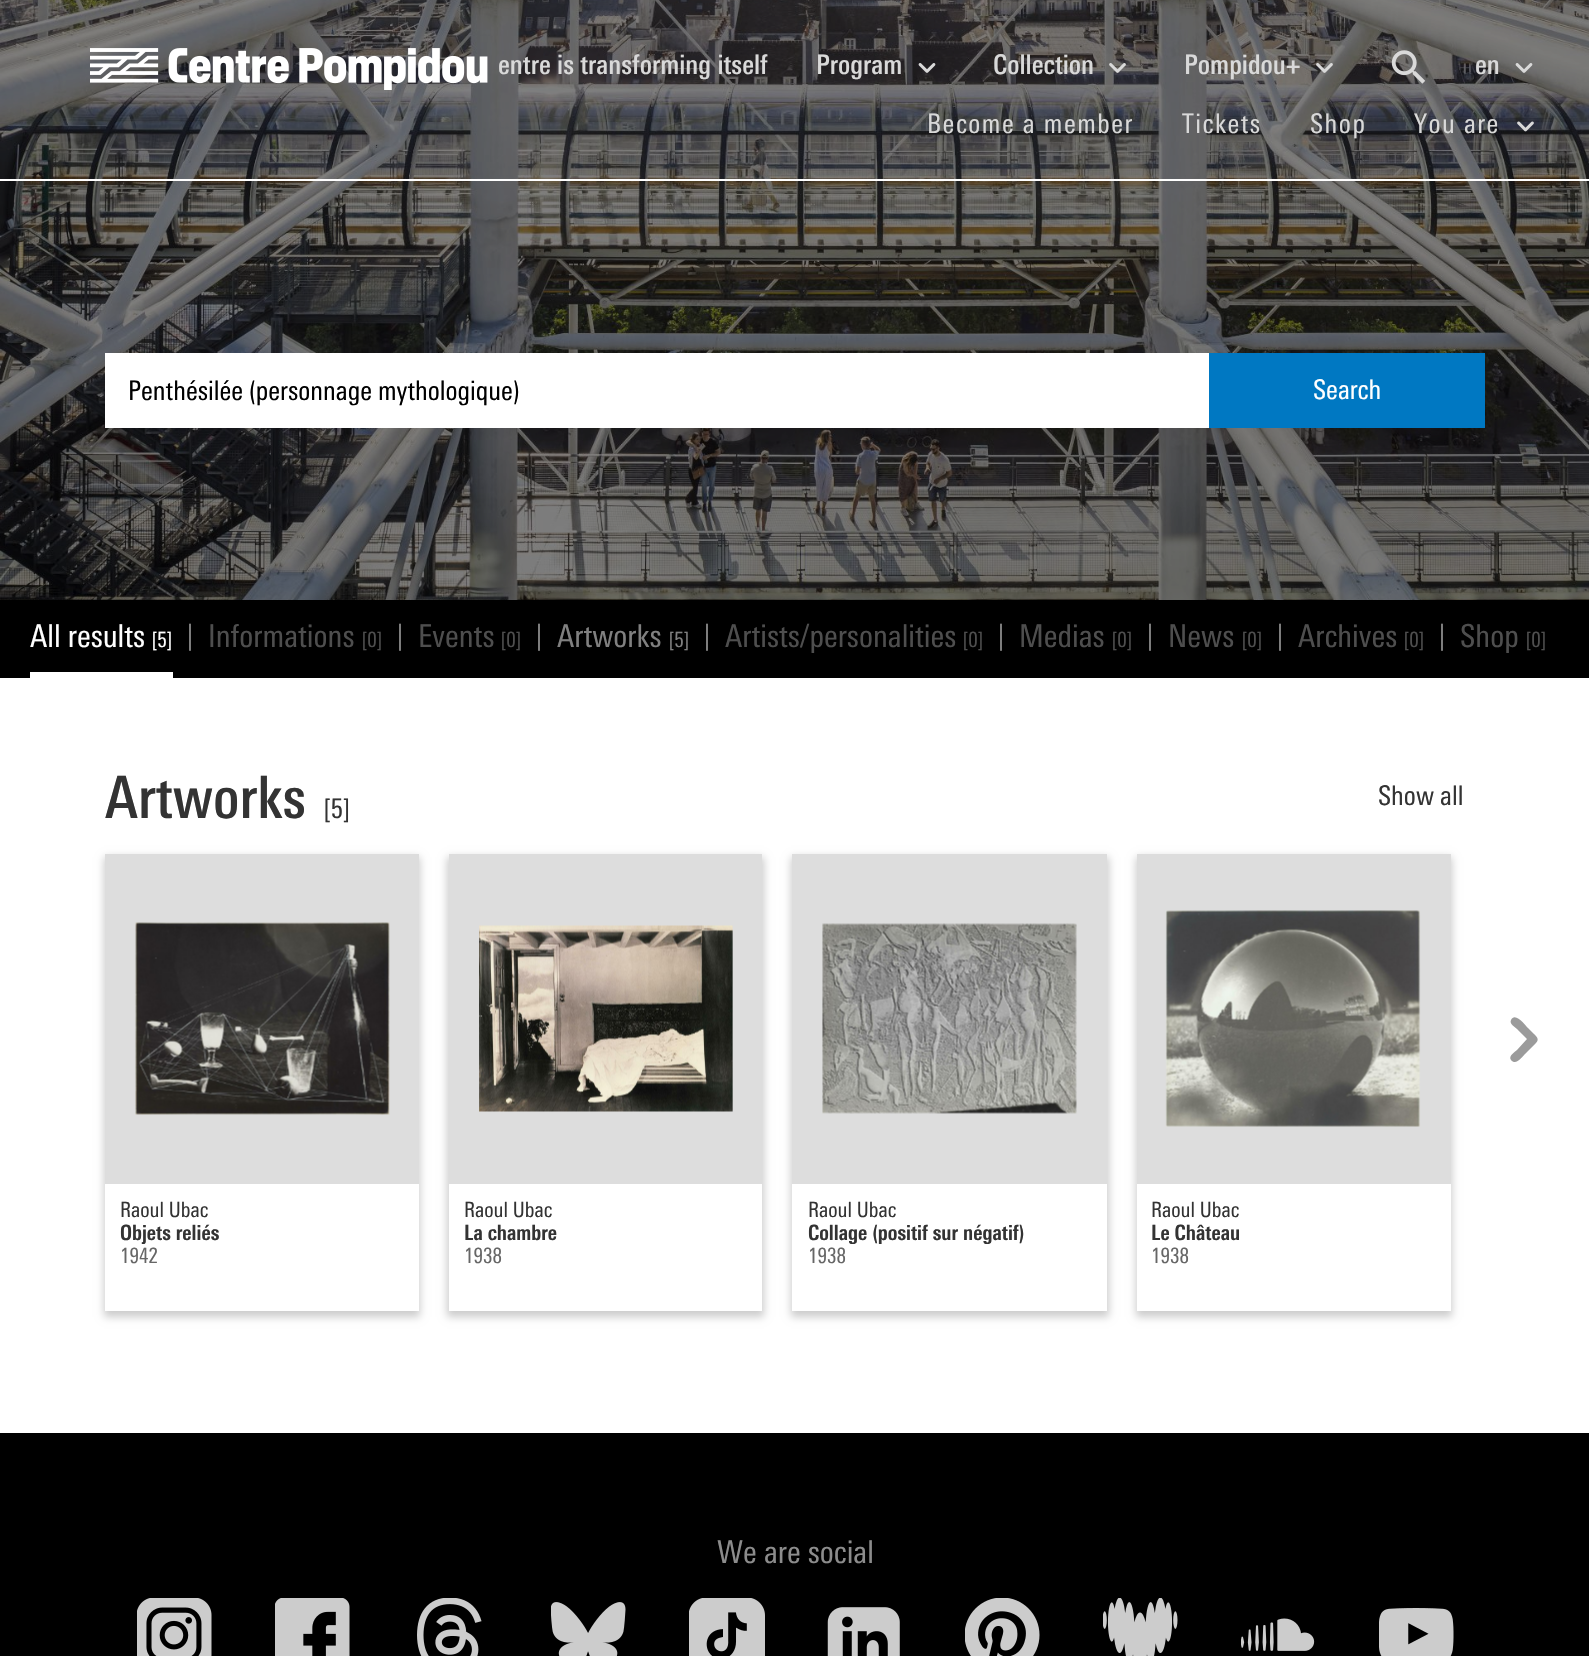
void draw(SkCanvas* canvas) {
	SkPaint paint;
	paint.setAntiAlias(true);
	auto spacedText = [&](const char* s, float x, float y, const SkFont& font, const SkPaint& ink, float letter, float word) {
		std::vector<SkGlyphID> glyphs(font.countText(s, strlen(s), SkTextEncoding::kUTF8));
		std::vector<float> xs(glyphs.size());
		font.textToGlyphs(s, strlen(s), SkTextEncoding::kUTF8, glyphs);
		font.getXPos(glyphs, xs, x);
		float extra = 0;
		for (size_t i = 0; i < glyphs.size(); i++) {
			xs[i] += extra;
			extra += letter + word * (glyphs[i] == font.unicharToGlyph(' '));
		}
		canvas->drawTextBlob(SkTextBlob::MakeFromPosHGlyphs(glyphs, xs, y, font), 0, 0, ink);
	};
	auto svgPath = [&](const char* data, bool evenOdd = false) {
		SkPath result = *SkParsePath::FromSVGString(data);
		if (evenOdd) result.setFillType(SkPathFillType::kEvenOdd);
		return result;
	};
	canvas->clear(0xffffffff);
	canvas->drawImageRect(SkImages::DeferredFromEncodedData(SkData::MakeFromFileName("img8.png")), SkRect::MakeXYWH(0, 0, 1589, 600), SkSamplingOptions());
	paint.setColor(0xffffffff);
	canvas->drawRect(SkRect::MakeXYWH(0, 179, 1589, 2), paint);
	canvas->drawImageRect(SkImages::DeferredFromEncodedData(SkData::MakeFromFileName("img1.png")), SkRect::MakeXYWH(90, 48, 398, 42), SkSamplingOptions());
	SkFont f1(fontMgr->matchFamilyStyle("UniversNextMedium", SkFontStyle(500, SkFontStyle::kNormal_Width, SkFontStyle::kUpright_Slant)), 27);
	f1.setSubpixel(true);
	paint.setColor(0xffd9d9d9);
	canvas->drawString("entre is transforming itself", 498, 74, f1, paint);
	canvas->drawString("Program", 816, 74, f1, paint);
	canvas->drawImageRect(SkImages::DeferredFromEncodedData(SkData::MakeFromFileName("img2.png")), SkRect::MakeXYWH(918, 63, 18, 10), SkSamplingOptions());
	canvas->drawString("Collection", 993, 74, f1, paint);
	canvas->drawImageRect(SkImages::DeferredFromEncodedData(SkData::MakeFromFileName("img3.png")), SkRect::MakeXYWH(1109, 63, 17, 10), SkSamplingOptions());
	canvas->drawString("Pompidou+", 1184, 74, f1, paint);
	canvas->drawImageRect(SkImages::DeferredFromEncodedData(SkData::MakeFromFileName("img4.png")), SkRect::MakeXYWH(1316, 63, 17, 10), SkSamplingOptions());
	canvas->drawImageRect(SkImages::DeferredFromEncodedData(SkData::MakeFromFileName("img5.png")), SkRect::MakeXYWH(1391, 50, 35, 34), SkSamplingOptions());
	canvas->drawString("en", 1475, 74, f1, paint);
	canvas->drawImageRect(SkImages::DeferredFromEncodedData(SkData::MakeFromFileName("img6.png")), SkRect::MakeXYWH(1515, 63, 18, 10), SkSamplingOptions());
	SkFont f2(fontMgr->matchFamilyStyle("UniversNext", SkFontStyle::Normal()), 27);
	f2.setSubpixel(true);
	spacedText("Become a member", 927, 133, f2, paint, 1.5, 0);
	spacedText("Tickets", 1182, 133, f2, paint, 1.5, 0);
	spacedText("Shop", 1310, 133, f2, paint, 1.5, 0);
	spacedText("You are", 1414, 133, f2, paint, 1.5, 0);
	canvas->drawImageRect(SkImages::DeferredFromEncodedData(SkData::MakeFromFileName("img7.png")), SkRect::MakeXYWH(1517, 121, 17, 11), SkSamplingOptions());
	paint.setColor(0xffffffff);
	canvas->drawRect(SkRect::MakeXYWH(105, 353, 1104, 75), paint);
	paint.setColor(0xff000000);
	canvas->drawString("Penthésilée (personnage mythologique)", 128, 400, f2, paint);
	paint.setColor(0xff0078c2);
	canvas->drawRect(SkRect::MakeXYWH(1209, 353, 276, 75), paint);
	paint.setColor(0xffffffff);
	canvas->drawString("Search", 1313, 399, f2, paint);
	paint.setColor(0xff000000);
	canvas->drawRect(SkRect::MakeXYWH(0, 600, 1589, 78), paint);
	paint.setColor(0xffffffff);
	canvas->drawRect(SkRect::MakeXYWH(30, 672, 143, 6), paint);
	SkFont f3(fontMgr->matchFamilyStyle("UniversNext", SkFontStyle::Normal()), 31.5);
	f3.setSubpixel(true);
	canvas->drawString("All results", 30, 647, f3, paint);
	SkFont f4(fontMgr->matchFamilyStyle("UniversNext", SkFontStyle::Normal()), 21);
	f4.setSubpixel(true);
	canvas->drawString("[5]", 152, 647, f4, paint);
	paint.setColor(0xff808080);
	canvas->drawString("|", 187, 645, f2, paint);
	paint.setColor(0xff4e4e4e);
	canvas->drawString("Informations", 208, 647, f3, paint);
	canvas->drawString("[0]", 362, 647, f4, paint);
	paint.setColor(0xff808080);
	canvas->drawString("|", 397, 645, f2, paint);
	paint.setColor(0xff4e4e4e);
	canvas->drawString("Events", 418, 647, f3, paint);
	canvas->drawString("[0]", 501, 647, f4, paint);
	paint.setColor(0xff808080);
	canvas->drawString("|", 536, 645, f2, paint);
	canvas->drawString("Artworks", 557, 647, f3, paint);
	canvas->drawString("[5]", 669, 647, f4, paint);
	canvas->drawString("|", 704, 645, f2, paint);
	paint.setColor(0xff4e4e4e);
	canvas->drawString("Artists/personalities", 725, 647, f3, paint);
	canvas->drawString("[0]", 963, 647, f4, paint);
	paint.setColor(0xff808080);
	canvas->drawString("|", 998, 645, f2, paint);
	paint.setColor(0xff4e4e4e);
	canvas->drawString("Medias", 1019, 647, f3, paint);
	canvas->drawString("[0]", 1112, 647, f4, paint);
	paint.setColor(0xff808080);
	canvas->drawString("|", 1147, 645, f2, paint);
	paint.setColor(0xff4e4e4e);
	canvas->drawString("News", 1168, 647, f3, paint);
	canvas->drawString("[0]", 1242, 647, f4, paint);
	paint.setColor(0xff808080);
	canvas->drawString("|", 1277, 645, f2, paint);
	paint.setColor(0xff4e4e4e);
	canvas->drawString("Archives", 1298, 647, f3, paint);
	canvas->drawString("[0]", 1404, 647, f4, paint);
	paint.setColor(0xff808080);
	canvas->drawString("|", 1439, 645, f2, paint);
	paint.setColor(0xff4e4e4e);
	canvas->drawString("Shop", 1460, 647, f3, paint);
	canvas->drawString("[0]", 1526, 647, f4, paint);
	SkFont f5(fontMgr->matchFamilyStyle("UniversNextMedium", SkFontStyle(500, SkFontStyle::kNormal_Width, SkFontStyle::kUpright_Slant)), 58.5);
	f5.setSubpixel(true);
	paint.setColor(0xff333333);
	canvas->drawString("Artworks", 105, 818, f5, paint);
	canvas->drawString("[5]", 324, 818, f2, paint);
	canvas->drawString("Show all", 1378, 805, f2, paint);
	paint.setColor(0xff9b9b9b);
	canvas->drawPath(svgPath("M1536 1043C1540 1039 1536 1036 1534 1034L1528 1028C1526 1026 1515 1011 1511 1020C1509 1024 1515 1027 1517 1029L1527 1039L1517 1050C1515 1052 1508 1056 1511 1060C1516 1066 1522 1057 1525 1054Z", true), paint);
	paint.setColor(0x33000000);
	paint.setMaskFilter(SkMaskFilter::MakeBlur(kNormal_SkBlurStyle, 4));
	canvas->drawRect(SkRect::MakeXYWH(104, 857, 316, 460), paint);
	paint.setMaskFilter(nullptr);
	paint.setColor(0xffffffff);
	canvas->drawRect(SkRect::MakeXYWH(105, 1184, 314, 127), paint);
	paint.setColor(0xffdddddd);
	canvas->drawRect(SkRect::MakeXYWH(105, 854, 314, 330), paint);
	canvas->drawImageRect(SkImages::DeferredFromEncodedData(SkData::MakeFromFileName("img9.png")), SkRect::MakeXYWH(135, 922, 255, 193), SkSamplingOptions());
	paint.setColor(0xff333333);
	canvas->drawString("Raoul Ubac", 120, 1217, f4, paint);
	SkFont f6(fontMgr->matchFamilyStyle("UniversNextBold", SkFontStyle::Bold()), 21);
	f6.setSubpixel(true);
	canvas->drawString("Objets reliés", 120, 1240, f6, paint);
	paint.setColor(0xff666666);
	canvas->drawString("1942", 120, 1263, f4, paint);
	canvas->save();
	canvas->clipPath(svgPath("M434 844H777V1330H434ZM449 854H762V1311H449Z", true), true);
	paint.setColor(0x33000000);
	paint.setMaskFilter(SkMaskFilter::MakeBlur(kNormal_SkBlurStyle, 4));
	canvas->drawRect(SkRect::MakeXYWH(447, 857, 317, 460), paint);
	paint.setMaskFilter(nullptr);
	canvas->restore();
	paint.setColor(0xffdddddd);
	canvas->drawRect(SkRect::MakeXYWH(449, 854, 313, 330), paint);
	canvas->drawImageRect(SkImages::DeferredFromEncodedData(SkData::MakeFromFileName("img10.png")), SkRect::MakeXYWH(479, 925, 254, 187), SkSamplingOptions());
	paint.setColor(0xff333333);
	canvas->drawString("Raoul Ubac", 464, 1217, f4, paint);
	canvas->drawString("La chambre", 464, 1240, f6, paint);
	paint.setColor(0xff666666);
	canvas->drawString("1938", 464, 1263, f4, paint);
	canvas->save();
	canvas->clipPath(svgPath("M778 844H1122V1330H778ZM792 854H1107V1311H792Z", true), true);
	paint.setColor(0x33000000);
	paint.setMaskFilter(SkMaskFilter::MakeBlur(kNormal_SkBlurStyle, 4));
	canvas->drawRect(SkRect::MakeXYWH(791, 857, 318, 460), paint);
	paint.setMaskFilter(nullptr);
	canvas->restore();
	paint.setColor(0xffdddddd);
	canvas->drawRect(SkRect::MakeXYWH(792, 854, 315, 330), paint);
	canvas->drawImageRect(SkImages::DeferredFromEncodedData(SkData::MakeFromFileName("img11.png")), SkRect::MakeXYWH(822, 923, 255, 191), SkSamplingOptions());
	paint.setColor(0xff333333);
	canvas->drawString("Raoul Ubac", 808, 1217, f4, paint);
	canvas->drawString("Collage (positif sur négatif)", 808, 1240, f6, paint);
	paint.setColor(0xff666666);
	canvas->drawString("1938", 808, 1263, f4, paint);
	paint.setColor(0x33000000);
	paint.setMaskFilter(SkMaskFilter::MakeBlur(kNormal_SkBlurStyle, 4));
	canvas->drawRect(SkRect::MakeXYWH(1136, 857, 316, 460), paint);
	paint.setMaskFilter(nullptr);
	paint.setColor(0xffffffff);
	canvas->drawRect(SkRect::MakeXYWH(1137, 1184, 314, 127), paint);
	paint.setColor(0xffdddddd);
	canvas->drawRect(SkRect::MakeXYWH(1137, 854, 314, 330), paint);
	canvas->drawImageRect(SkImages::DeferredFromEncodedData(SkData::MakeFromFileName("img12.png")), SkRect::MakeXYWH(1165, 910, 256, 217), SkSamplingOptions());
	paint.setColor(0xff333333);
	canvas->drawString("Raoul Ubac", 1151, 1217, f4, paint);
	canvas->drawString("Le Château", 1151, 1240, f6, paint);
	paint.setColor(0xff666666);
	canvas->drawString("1938", 1151, 1263, f4, paint);
	paint.setColor(0xff000000);
	canvas->drawRect(SkRect::MakeXYWH(0, 1433, 1589, 223), paint);
	paint.setColor(0xff8c8c8c);
	canvas->drawString("We are social", 717, 1563, f3, paint);
	canvas->drawImageRect(SkImages::DeferredFromEncodedData(SkData::MakeFromFileName("img13.png")), SkRect::MakeXYWH(137, 1598, 75, 58), SkSamplingOptions());
	canvas->drawImageRect(SkImages::DeferredFromEncodedData(SkData::MakeFromFileName("img14.png")), SkRect::MakeXYWH(275, 1598, 75, 58), SkSamplingOptions());
	canvas->drawImageRect(SkImages::DeferredFromEncodedData(SkData::MakeFromFileName("img15.png")), SkRect::MakeXYWH(417, 1598, 65, 58), SkSamplingOptions());
	canvas->drawImageRect(SkImages::DeferredFromEncodedData(SkData::MakeFromFileName("img16.png")), SkRect::MakeXYWH(551, 1602, 75, 54), SkSamplingOptions());
	canvas->drawImageRect(SkImages::DeferredFromEncodedData(SkData::MakeFromFileName("img17.png")), SkRect::MakeXYWH(689, 1598, 76, 58), SkSamplingOptions());
	canvas->drawImageRect(SkImages::DeferredFromEncodedData(SkData::MakeFromFileName("img18.png")), SkRect::MakeXYWH(827, 1607, 73, 49), SkSamplingOptions());
	canvas->drawImageRect(SkImages::DeferredFromEncodedData(SkData::MakeFromFileName("img19.png")), SkRect::MakeXYWH(965, 1598, 75, 58), SkSamplingOptions());
	canvas->drawImageRect(SkImages::DeferredFromEncodedData(SkData::MakeFromFileName("img20.png")), SkRect::MakeXYWH(1103, 1598, 75, 58), SkSamplingOptions());
	canvas->drawImageRect(SkImages::DeferredFromEncodedData(SkData::MakeFromFileName("img21.png")), SkRect::MakeXYWH(1241, 1618, 74, 33), SkSamplingOptions());
	canvas->drawImageRect(SkImages::DeferredFromEncodedData(SkData::MakeFromFileName("img22.png")), SkRect::MakeXYWH(1379, 1608, 75, 48), SkSamplingOptions());
}
